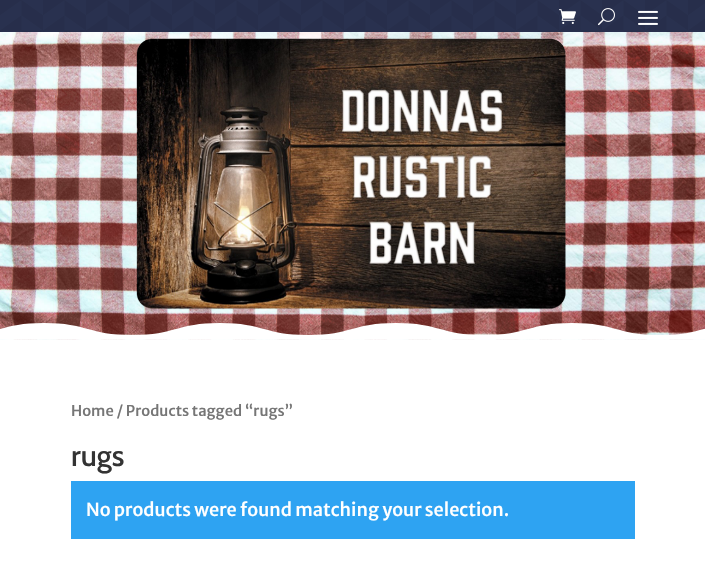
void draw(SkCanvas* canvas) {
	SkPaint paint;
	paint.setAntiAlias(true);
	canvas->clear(0xffffffff);
	paint.setColor(0xff29314f);
	canvas->drawRect(SkRect::MakeXYWH(0, 0, 705, 32), paint);
	canvas->drawImageRect(SkImages::DeferredFromEncodedData(SkData::MakeFromFileName("img1.png")), SkRect::MakeXYWH(0, 0, 705, 32), SkSamplingOptions());
	canvas->drawImageRect(SkImages::DeferredFromEncodedData(SkData::MakeFromFileName("img2.png")), SkRect::MakeXYWH(559, 9, 17, 15), SkSamplingOptions());
	canvas->drawImageRect(SkImages::DeferredFromEncodedData(SkData::MakeFromFileName("img3.png")), SkRect::MakeXYWH(598, 8, 17, 18), SkSamplingOptions());
	canvas->drawImageRect(SkImages::DeferredFromEncodedData(SkData::MakeFromFileName("img4.png")), SkRect::MakeXYWH(638, 10, 20, 15), SkSamplingOptions());
	canvas->drawImageRect(SkImages::DeferredFromEncodedData(SkData::MakeFromFileName("img5.png")), SkRect::MakeXYWH(0, 32, 705, 308), SkSamplingOptions());
	canvas->drawImageRect(SkImages::DeferredFromEncodedData(SkData::MakeFromFileName("img6.png")), SkRect::MakeXYWH(136, 38, 430, 272), SkSamplingOptions());
	canvas->drawImageRect(SkImages::DeferredFromEncodedData(SkData::MakeFromFileName("img7.png")), SkRect::MakeXYWH(0, 323, 705, 16), SkSamplingOptions());
	SkFont f1(fontMgr->matchFamilyStyle("Merriweather Sans", SkFontStyle(500, SkFontStyle::kNormal_Width, SkFontStyle::kUpright_Slant)), 14.75);
	f1.setSubpixel(true);
	paint.setColor(0xff767676);
	canvas->drawString("Home / Products tagged “rugs”", 71, 416, f1, paint);
	SkFont f2(fontMgr->matchFamilyStyle("Cabin", SkFontStyle(500, SkFontStyle::kNormal_Width, SkFontStyle::kUpright_Slant)), 30);
	f2.setSubpixel(true);
	paint.setColor(0xff333333);
	canvas->drawString("rugs", 71, 466, f2, paint);
	paint.setColor(0xff2ea3f2);
	canvas->drawRect(SkRect::MakeXYWH(71, 481, 564, 58), paint);
	SkFont f3(fontMgr->matchFamilyStyle("Merriweather Sans", SkFontStyle(500, SkFontStyle::kNormal_Width, SkFontStyle::kUpright_Slant)), 18);
	f3.setSubpixel(true);
	paint.setColor(0xffffffff);
	canvas->drawString("No products were found matching your selection.", 86, 516, f3, paint);
}
